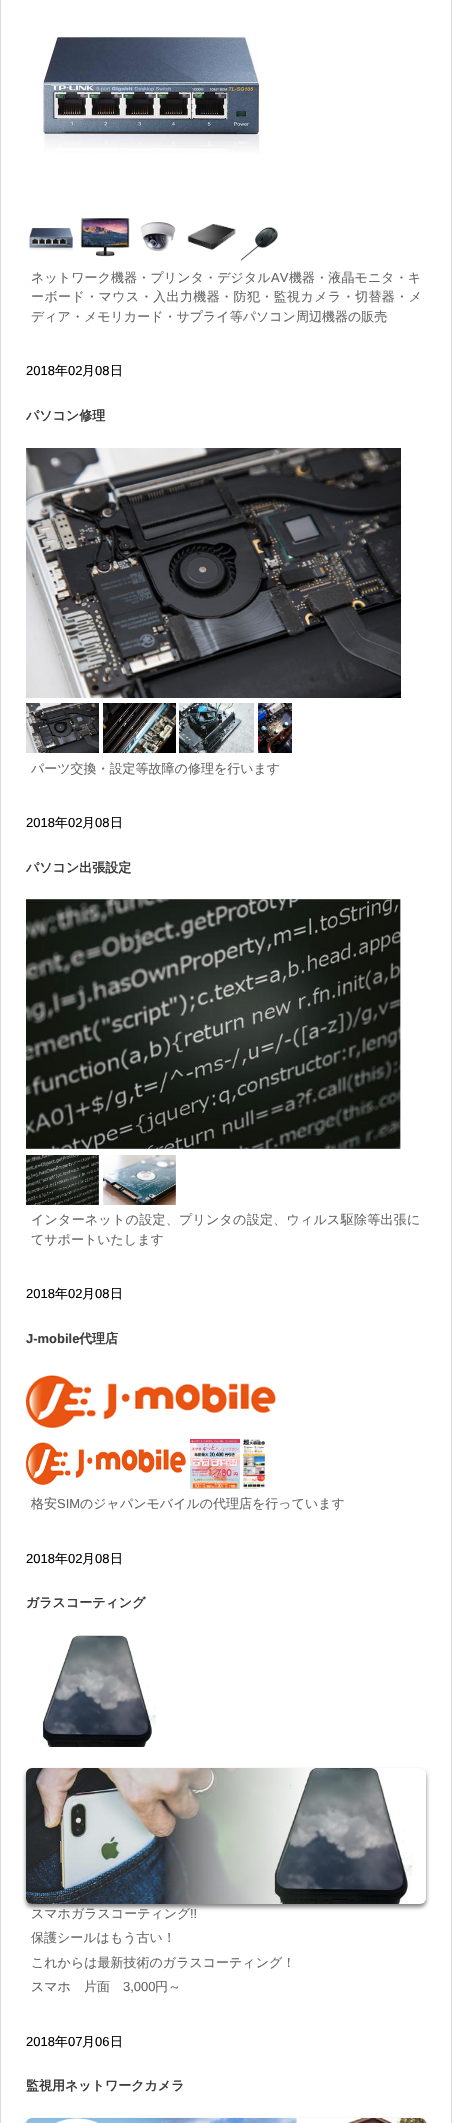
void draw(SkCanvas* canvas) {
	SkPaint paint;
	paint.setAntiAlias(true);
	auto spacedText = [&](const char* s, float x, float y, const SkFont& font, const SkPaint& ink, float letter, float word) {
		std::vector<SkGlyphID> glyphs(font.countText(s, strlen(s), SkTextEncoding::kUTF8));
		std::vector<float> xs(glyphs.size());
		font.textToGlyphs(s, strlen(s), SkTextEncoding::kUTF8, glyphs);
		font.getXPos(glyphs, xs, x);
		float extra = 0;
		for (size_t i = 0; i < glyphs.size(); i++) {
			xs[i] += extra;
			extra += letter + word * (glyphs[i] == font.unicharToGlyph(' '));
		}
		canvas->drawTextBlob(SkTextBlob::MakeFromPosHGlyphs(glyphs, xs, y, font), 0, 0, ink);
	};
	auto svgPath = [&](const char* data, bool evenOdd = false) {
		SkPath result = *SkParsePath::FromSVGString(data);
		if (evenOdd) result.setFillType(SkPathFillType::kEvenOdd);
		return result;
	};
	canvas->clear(0xffffffff);
	paint.setStroke(true);
	paint.setStrokeWidth(1);
	paint.setColor(0xffd9d9d9);
	canvas->drawRect(SkRect::MakeXYWH(0.5, -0.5, 451, 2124), paint);
	canvas->drawImageRect(SkImages::DeferredFromEncodedData(SkData::MakeFromFileName("img1.png")), SkRect::MakeXYWH(42, 37, 224, 116), SkSamplingOptions());
	canvas->drawImageRect(SkImages::DeferredFromEncodedData(SkData::MakeFromFileName("img2.png")), SkRect::MakeXYWH(29, 228, 44, 23), SkSamplingOptions());
	canvas->drawImageRect(SkImages::DeferredFromEncodedData(SkData::MakeFromFileName("img3.png")), SkRect::MakeXYWH(80, 218, 50, 39), SkSamplingOptions());
	canvas->drawImageRect(SkImages::DeferredFromEncodedData(SkData::MakeFromFileName("img4.png")), SkRect::MakeXYWH(140, 222, 36, 30), SkSamplingOptions());
	canvas->drawImageRect(SkImages::DeferredFromEncodedData(SkData::MakeFromFileName("img5.png")), SkRect::MakeXYWH(187, 224, 49, 26), SkSamplingOptions());
	canvas->drawImageRect(SkImages::DeferredFromEncodedData(SkData::MakeFromFileName("img6.png")), SkRect::MakeXYWH(241, 227, 37, 34), SkSamplingOptions());
	SkFont f1(fontMgr->matchFamilyStyle("WenQuanYi Zen Hei", SkFontStyle(500, SkFontStyle::kNormal_Width, SkFontStyle::kUpright_Slant)), 13);
	f1.setSubpixel(true);
	paint.setStroke(false);
	paint.setColor(0xff666666);
	spacedText("ネットワーク機器・プリンタ・デジタル", 31, 282, f1, paint, 0.1, 0);
	SkFont f2(fontMgr->matchFamilyStyle("Liberation Sans", SkFontStyle::Normal()), 13);
	f2.setSubpixel(true);
	spacedText("AV", 271, 282, f2, paint, 0.1, 0);
	spacedText("機器・液晶モニタ・キ", 289, 282, f1, paint, 0.1, 0);
	spacedText("ーボード・マウス・入出力機器・防犯・監視カメラ・切替器・メ", 31, 301, f1, paint, 0.4, 0);
	canvas->drawString("ディア・メモリカード・サプライ等パソコン周辺機器の販売", 31, 321, f1, paint);
	paint.setColor(0xff000000);
	canvas->drawString("2018", 26, 375, f2, paint);
	canvas->drawString("年", 55, 375, f1, paint);
	canvas->drawString("02", 68, 375, f2, paint);
	canvas->drawString("月", 82, 375, f1, paint);
	canvas->drawString("08", 95, 375, f2, paint);
	canvas->drawString("日", 110, 375, f1, paint);
	SkFont f3(fontMgr->matchFamilyStyle("WenQuanYi Zen Hei", SkFontStyle::Bold()), 13);
	f3.setSubpixel(true);
	paint.setColor(0xff3c3c3c);
	canvas->drawString("パソコン修理", 26, 420, f3, paint);
	canvas->drawImageRect(SkImages::DeferredFromEncodedData(SkData::MakeFromFileName("img7.png")), SkRect::MakeXYWH(26, 448, 375, 250), SkSamplingOptions());
	canvas->drawImageRect(SkImages::DeferredFromEncodedData(SkData::MakeFromFileName("img8.png")), SkRect::MakeXYWH(26, 703, 73, 50), SkSamplingOptions());
	canvas->drawImageRect(SkImages::DeferredFromEncodedData(SkData::MakeFromFileName("img9.png")), SkRect::MakeXYWH(103, 703, 73, 50), SkSamplingOptions());
	canvas->drawImageRect(SkImages::DeferredFromEncodedData(SkData::MakeFromFileName("img10.png")), SkRect::MakeXYWH(179, 703, 75, 50), SkSamplingOptions());
	canvas->drawImageRect(SkImages::DeferredFromEncodedData(SkData::MakeFromFileName("img11.png")), SkRect::MakeXYWH(258, 703, 34, 50), SkSamplingOptions());
	paint.setColor(0xff666666);
	canvas->drawString("パーツ交換・設定等故障の修理を行います", 31, 773, f1, paint);
	paint.setColor(0xff000000);
	canvas->drawString("2018", 26, 827, f2, paint);
	canvas->drawString("年", 55, 827, f1, paint);
	canvas->drawString("02", 68, 827, f2, paint);
	canvas->drawString("月", 82, 827, f1, paint);
	canvas->drawString("08", 95, 827, f2, paint);
	canvas->drawString("日", 110, 827, f1, paint);
	paint.setColor(0xff3c3c3c);
	canvas->drawString("パソコン出張設定", 26, 872, f3, paint);
	canvas->drawImageRect(SkImages::DeferredFromEncodedData(SkData::MakeFromFileName("img12.png")), SkRect::MakeXYWH(26, 899, 375, 250), SkSamplingOptions());
	canvas->drawImageRect(SkImages::DeferredFromEncodedData(SkData::MakeFromFileName("img13.png")), SkRect::MakeXYWH(26, 1155, 73, 50), SkSamplingOptions());
	canvas->drawImageRect(SkImages::DeferredFromEncodedData(SkData::MakeFromFileName("img14.png")), SkRect::MakeXYWH(103, 1155, 73, 50), SkSamplingOptions());
	paint.setColor(0xff666666);
	spacedText("インターネットの設定、プリンタの設定、ウィルス駆除等出張に", 31, 1224, f1, paint, 0.25, 0);
	canvas->drawString("てサポートいたします", 31, 1244, f1, paint);
	paint.setColor(0xff000000);
	canvas->drawString("2018", 26, 1298, f2, paint);
	canvas->drawString("年", 55, 1298, f1, paint);
	canvas->drawString("02", 68, 1298, f2, paint);
	canvas->drawString("月", 82, 1298, f1, paint);
	canvas->drawString("08", 95, 1298, f2, paint);
	canvas->drawString("日", 110, 1298, f1, paint);
	SkFont f4(fontMgr->matchFamilyStyle("Liberation Sans", SkFontStyle::Bold()), 13);
	f4.setSubpixel(true);
	paint.setColor(0xff3c3c3c);
	canvas->drawString("J-mobile", 26, 1343, f4, paint);
	canvas->drawString("代理店", 79, 1343, f3, paint);
	canvas->drawImageRect(SkImages::DeferredFromEncodedData(SkData::MakeFromFileName("img15.png")), SkRect::MakeXYWH(26, 1375, 250, 53), SkSamplingOptions());
	canvas->drawImageRect(SkImages::DeferredFromEncodedData(SkData::MakeFromFileName("img16.png")), SkRect::MakeXYWH(26, 1442, 160, 43), SkSamplingOptions());
	canvas->drawImageRect(SkImages::DeferredFromEncodedData(SkData::MakeFromFileName("img17.png")), SkRect::MakeXYWH(190, 1439, 50, 50), SkSamplingOptions());
	canvas->drawImageRect(SkImages::DeferredFromEncodedData(SkData::MakeFromFileName("img18.png")), SkRect::MakeXYWH(243, 1439, 22, 50), SkSamplingOptions());
	paint.setColor(0xff666666);
	canvas->drawString("格安", 31, 1508, f1, paint);
	canvas->drawString("SIM", 57, 1508, f2, paint);
	canvas->drawString("のジャパンモバイルの代理店を行っています", 80, 1508, f1, paint);
	paint.setColor(0xff000000);
	canvas->drawString("2018", 26, 1563, f2, paint);
	canvas->drawString("年", 55, 1563, f1, paint);
	canvas->drawString("02", 68, 1563, f2, paint);
	canvas->drawString("月", 82, 1563, f1, paint);
	canvas->drawString("08", 95, 1563, f2, paint);
	canvas->drawString("日", 110, 1563, f1, paint);
	paint.setColor(0xff3c3c3c);
	canvas->drawString("ガラスコーティング", 26, 1607, f3, paint);
	canvas->drawImageRect(SkImages::DeferredFromEncodedData(SkData::MakeFromFileName("img19.png")), SkRect::MakeXYWH(42, 1635, 114, 112), SkSamplingOptions());
	paint.setColor(0x80000000);
	paint.setMaskFilter(SkMaskFilter::MakeBlur(kNormal_SkBlurStyle, 2));
	canvas->drawRoundRect(SkRect::MakeXYWH(26, 1771, 400, 136), 6, 6, paint);
	paint.setMaskFilter(nullptr);
	canvas->drawImageRect(SkImages::DeferredFromEncodedData(SkData::MakeFromFileName("img20.png")), SkRect::MakeXYWH(26, 1768, 400, 136), SkSamplingOptions());
	paint.setColor(0xff666666);
	canvas->drawString("スマホガラスコーティング", 31, 1918, f1, paint);
	canvas->drawString("!!", 190, 1918, f2, paint);
	canvas->drawString("保護シールはもう古い！", 31, 1942, f1, paint);
	canvas->drawString("これからは最新技術のガラスコーティング！", 31, 1967, f1, paint);
	canvas->drawString("スマホ　片面", 31, 1991, f1, paint);
	canvas->drawString("3,000", 123, 1991, f2, paint);
	canvas->drawString("円～", 155, 1991, f1, paint);
	paint.setColor(0xff000000);
	canvas->drawString("2018", 26, 2046, f2, paint);
	canvas->drawString("年", 55, 2046, f1, paint);
	canvas->drawString("07", 68, 2046, f2, paint);
	canvas->drawString("月", 82, 2046, f1, paint);
	canvas->drawString("06", 95, 2046, f2, paint);
	canvas->drawString("日", 110, 2046, f1, paint);
	paint.setColor(0xff3c3c3c);
	canvas->drawString("監視用ネットワークカメラ", 26, 2090, f3, paint);
	canvas->save();
	canvas->clipPath(svgPath("M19 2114H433V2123H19ZM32 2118H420C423.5 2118 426 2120.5 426 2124V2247C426 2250.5 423.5 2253 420 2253H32C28.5 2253 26 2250.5 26 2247V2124C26 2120.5 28.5 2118 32 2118Z", true), true);
	paint.setColor(0x80000000);
	paint.setMaskFilter(SkMaskFilter::MakeBlur(kNormal_SkBlurStyle, 2));
	canvas->drawRoundRect(SkRect::MakeXYWH(26, 2121, 400, 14), 6, 6, paint);
	paint.setMaskFilter(nullptr);
	canvas->restore();
	canvas->drawImageRect(SkImages::DeferredFromEncodedData(SkData::MakeFromFileName("img21.png")), SkRect::MakeXYWH(26, 2118, 400, 5), SkSamplingOptions());
}
